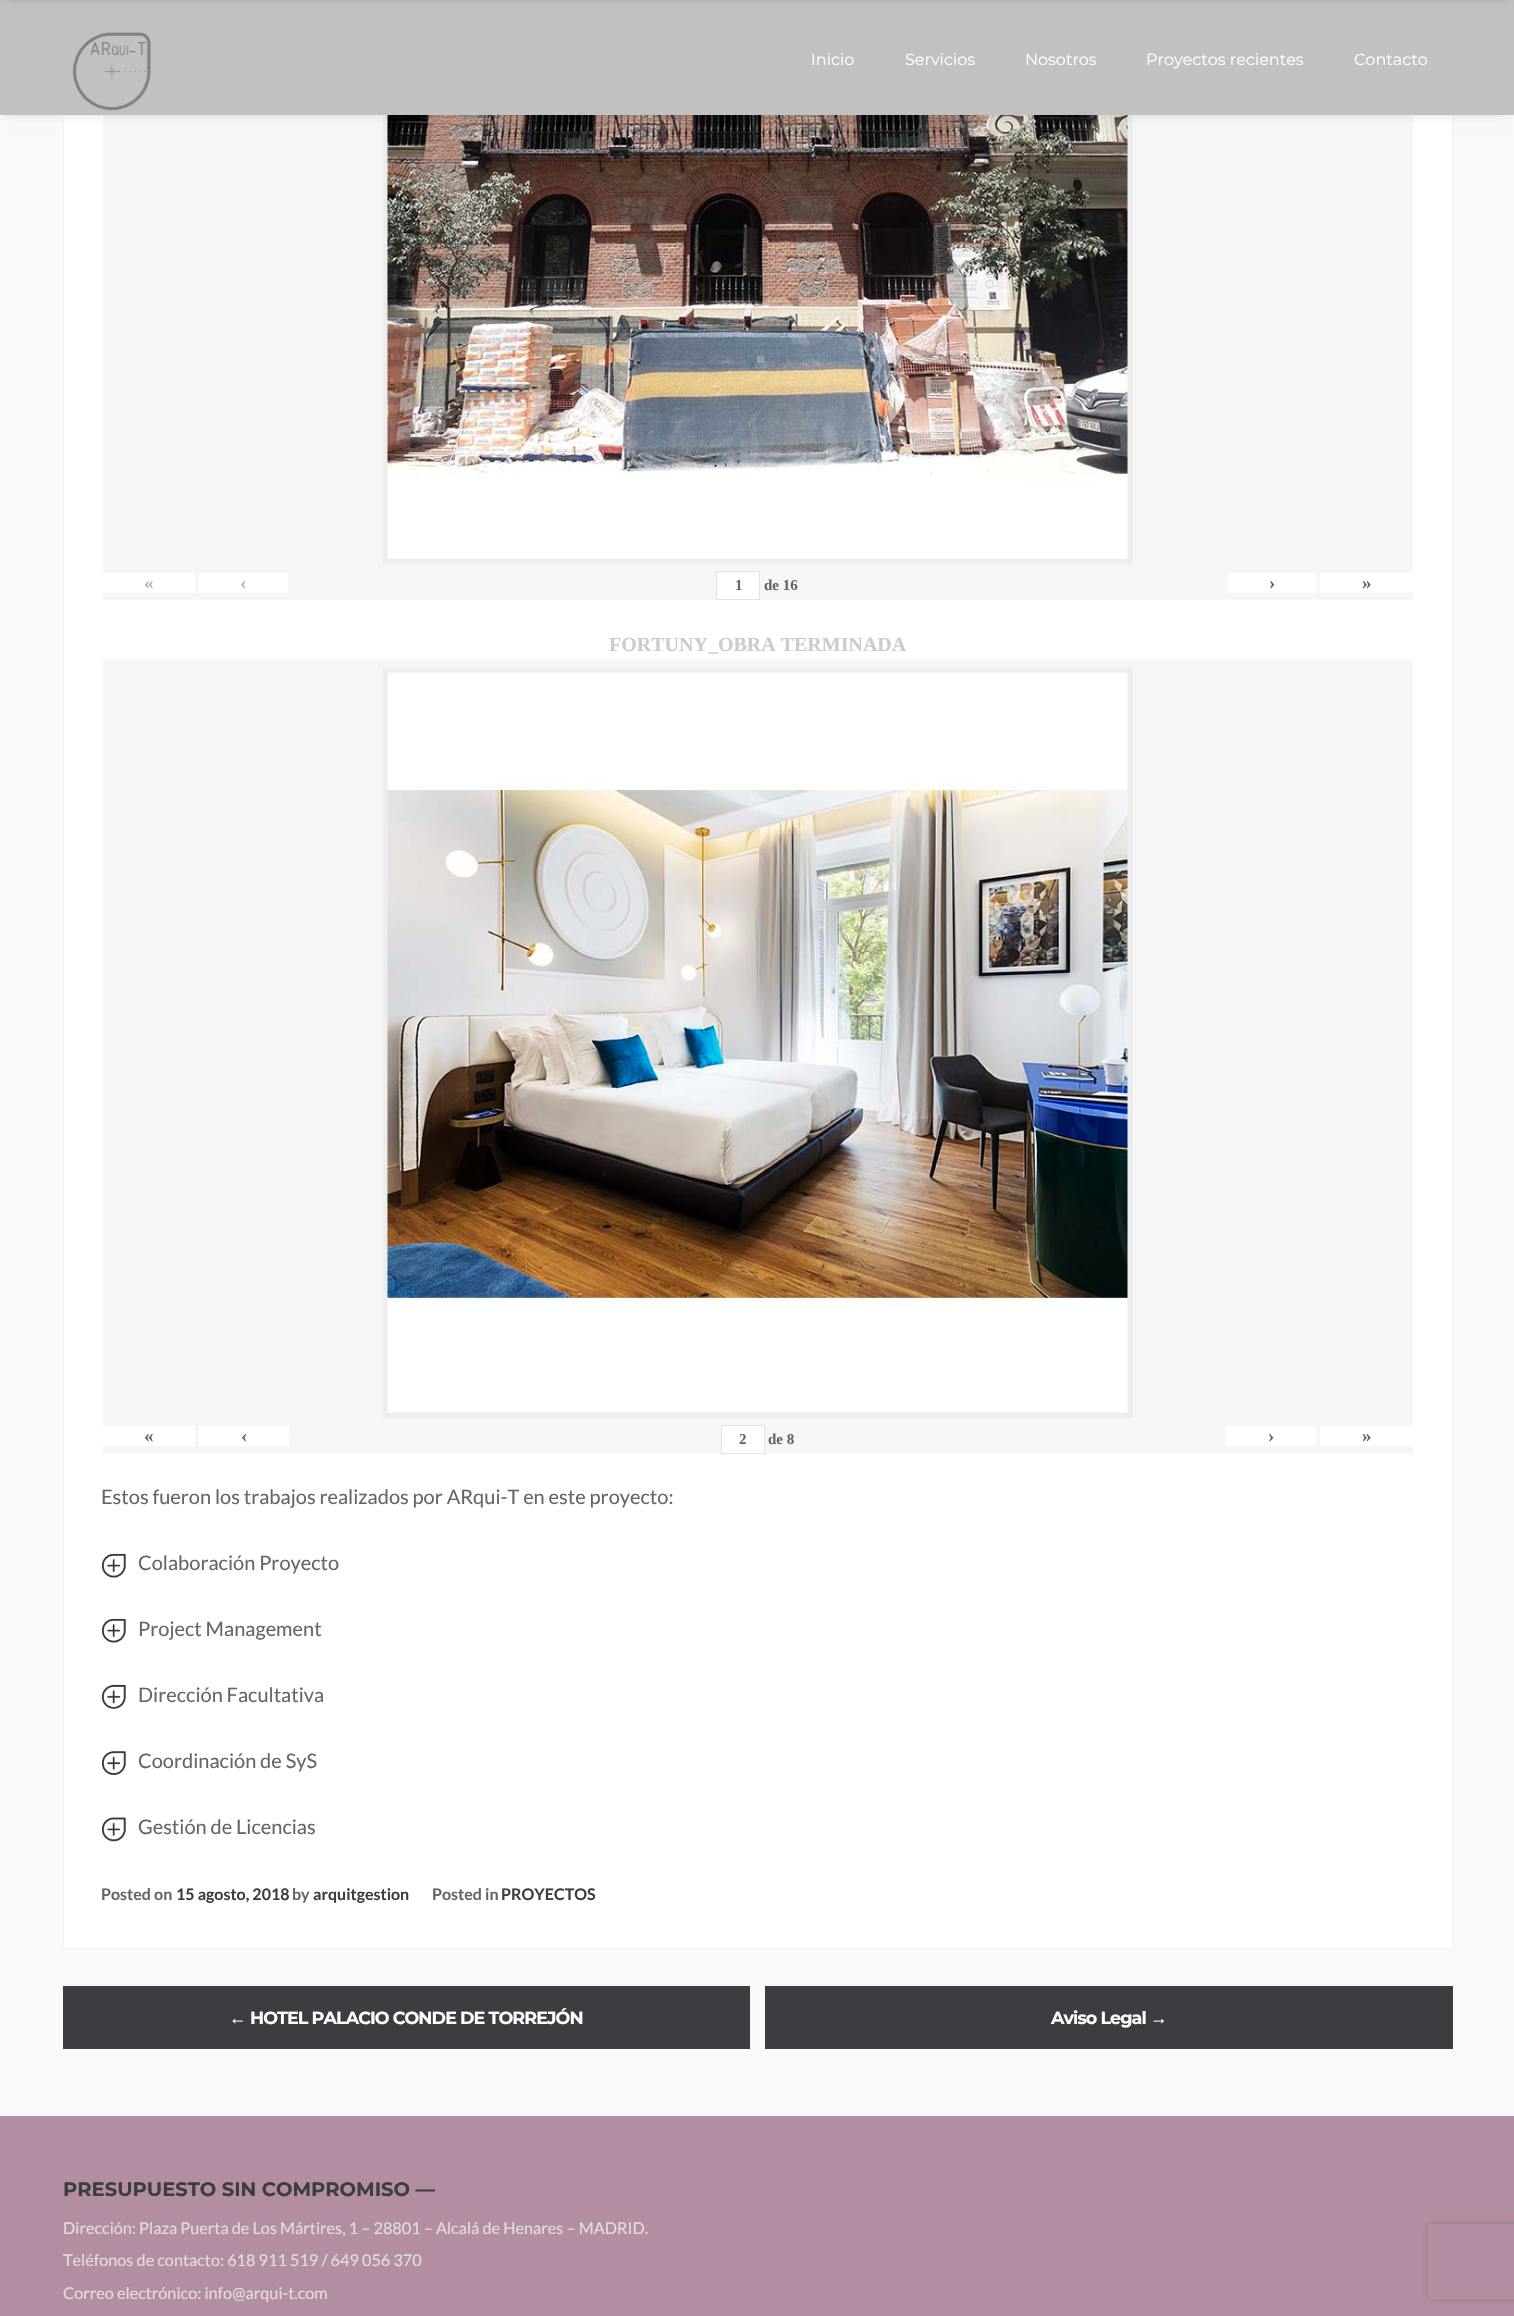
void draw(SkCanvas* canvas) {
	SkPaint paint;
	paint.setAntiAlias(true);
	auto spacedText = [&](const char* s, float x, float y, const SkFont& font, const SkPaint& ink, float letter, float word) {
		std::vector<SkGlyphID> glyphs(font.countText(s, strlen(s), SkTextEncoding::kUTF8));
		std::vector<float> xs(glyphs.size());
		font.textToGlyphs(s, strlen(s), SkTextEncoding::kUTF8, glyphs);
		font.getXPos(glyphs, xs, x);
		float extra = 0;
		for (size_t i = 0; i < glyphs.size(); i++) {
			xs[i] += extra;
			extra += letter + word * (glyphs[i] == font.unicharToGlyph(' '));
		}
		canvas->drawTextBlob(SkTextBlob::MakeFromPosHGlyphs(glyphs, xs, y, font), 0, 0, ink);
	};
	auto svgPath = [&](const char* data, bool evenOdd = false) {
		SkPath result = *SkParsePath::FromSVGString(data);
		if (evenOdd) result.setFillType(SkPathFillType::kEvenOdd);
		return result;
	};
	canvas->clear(0xfff9f9f9);
	paint.setColor(0xffffffff);
	canvas->drawRect(SkRect::MakeXYWH(64, 115, 1388, 1833), paint);
	paint.setStroke(true);
	paint.setStrokeWidth(1);
	paint.setColor(0xfff3f3f3);
	canvas->drawRect(SkRect::MakeXYWH(63.5, -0.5, 1389, 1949), paint);
	paint.setStroke(false);
	paint.setColor(0xfff6f6f6);
	canvas->drawRect(SkRect::MakeXYWH(103, 115, 1310, 485), paint);
	paint.setColor(0xffededed);
	canvas->drawRect(SkRect::MakeXYWH(383, 115, 750, 449), paint);
	canvas->drawImageRect(SkImages::DeferredFromEncodedData(SkData::MakeFromFileName("img2.png")), SkRect::MakeXYWH(387, 115, 741, 444), SkSamplingOptions());
	paint.setColor(0x26000000);
	paint.setMaskFilter(SkMaskFilter::MakeBlur(kNormal_SkBlurStyle, 5));
	canvas->drawRect(SkRect::MakeXYWH(5, 9, 1505, 105), paint);
	paint.setMaskFilter(nullptr);
	paint.setColor(0xffc1c1c1);
	canvas->drawRect(SkRect::MakeXYWH(0, 0, 1514, 115), paint);
	canvas->drawImageRect(SkImages::DeferredFromEncodedData(SkData::MakeFromFileName("img1.png")), SkRect::MakeXYWH(72, 32, 79, 79), SkSamplingOptions());
	SkFont f1(fontMgr->matchFamilyStyle("Montserrat", SkFontStyle::Normal()), 16);
	f1.setSubpixel(true);
	paint.setColor(0xffffffff);
	canvas->drawString("Inicio", 811, 65, f1, paint);
	canvas->drawString("Servicios", 905, 65, f1, paint);
	canvas->drawString("Nosotros", 1025, 65, f1, paint);
	canvas->drawString("Proyectos recientes", 1146, 65, f1, paint);
	canvas->drawString("Contacto", 1354, 65, f1, paint);
	paint.setColor(0x26000000);
	paint.setMaskFilter(SkMaskFilter::MakeBlur(kNormal_SkBlurStyle, 5));
	canvas->drawRect(SkRect::MakeXYWH(5, -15, 1505, 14), paint);
	paint.setMaskFilter(nullptr);
	paint.setColor(0xffffffff);
	canvas->drawRect(SkRect::MakeXYWH(103, 573, 92, 20), paint);
	SkFont f2(fontMgr->matchFamilyStyle("Liberation Serif", SkFontStyle::Bold()), 19);
	f2.setSubpixel(true);
	paint.setColor(0xffb3b3b3);
	canvas->drawString("«", 144, 589, f2, paint);
	paint.setColor(0xffffffff);
	canvas->drawRect(SkRect::MakeXYWH(199, 573, 89, 20), paint);
	paint.setColor(0xffb3b3b3);
	canvas->drawString("‹", 240, 589, f2, paint);
	paint.setColor(0xffffffff);
	canvas->drawRect(SkRect::MakeXYWH(716.5, 571.5, 43, 28), paint);
	paint.setStroke(true);
	paint.setColor(0xffe3e3e3);
	canvas->drawRect(SkRect::MakeXYWH(716.5, 571.5, 43, 28), paint);
	SkFont f3(fontMgr->matchFamilyStyle("Liberation Serif", SkFontStyle::Bold()), 15);
	f3.setSubpixel(true);
	paint.setStroke(false);
	paint.setColor(0xff656565);
	canvas->drawString("1", 735, 590, f3, paint);
	canvas->drawString("de 16", 764, 590, f3, paint);
	paint.setColor(0xffffffff);
	canvas->drawRect(SkRect::MakeXYWH(1228, 573, 88, 20), paint);
	paint.setColor(0xff656565);
	canvas->drawString("›", 1269, 589, f2, paint);
	paint.setColor(0xffffffff);
	canvas->drawRect(SkRect::MakeXYWH(1320, 573, 93, 20), paint);
	paint.setColor(0xff656565);
	canvas->drawString("»", 1362, 589, f2, paint);
	SkFont f4(fontMgr->matchFamilyStyle("Liberation Serif", SkFontStyle::Bold()), 20);
	f4.setSubpixel(true);
	paint.setColor(0xffcccccc);
	canvas->drawString("FORTUNY_OBRA TERMINADA", 609, 651, f4, paint);
	paint.setColor(0xfff6f6f6);
	canvas->drawRect(SkRect::MakeXYWH(103, 660, 1310, 794), paint);
	paint.setColor(0xffededed);
	canvas->drawRect(SkRect::MakeXYWH(383, 668, 750, 750), paint);
	canvas->drawImageRect(SkImages::DeferredFromEncodedData(SkData::MakeFromFileName("img3.png")), SkRect::MakeXYWH(387, 672, 741, 741), SkSamplingOptions());
	paint.setColor(0xffffffff);
	canvas->drawRect(SkRect::MakeXYWH(103, 1426, 92, 20), paint);
	paint.setColor(0xff656565);
	canvas->drawString("«", 144, 1442, f2, paint);
	paint.setColor(0xffffffff);
	canvas->drawRect(SkRect::MakeXYWH(199, 1426, 90, 20), paint);
	paint.setColor(0xff656565);
	canvas->drawString("‹", 241, 1442, f2, paint);
	paint.setColor(0xffffffff);
	canvas->drawRect(SkRect::MakeXYWH(721.5, 1425.5, 43, 28), paint);
	paint.setStroke(true);
	paint.setColor(0xffe3e3e3);
	canvas->drawRect(SkRect::MakeXYWH(721.5, 1425.5, 43, 28), paint);
	paint.setStroke(false);
	paint.setColor(0xff656565);
	canvas->drawString("2", 739, 1444, f3, paint);
	canvas->drawString("de 8", 768, 1444, f3, paint);
	paint.setColor(0xffffffff);
	canvas->drawRect(SkRect::MakeXYWH(1226, 1426, 90, 20), paint);
	paint.setColor(0xff656565);
	canvas->drawString("›", 1268, 1442, f2, paint);
	paint.setColor(0xffffffff);
	canvas->drawRect(SkRect::MakeXYWH(1320, 1426, 93, 20), paint);
	paint.setColor(0xff656565);
	canvas->drawString("»", 1362, 1442, f2, paint);
	SkFont f5(fontMgr->matchFamilyStyle("Lato", SkFontStyle::Normal()), 20);
	f5.setSubpixel(true);
	canvas->drawString("Estos fueron los trabajos realizados por ARqui-T en este proyecto:", 101, 1504, f5, paint);
	canvas->drawImageRect(SkImages::DeferredFromEncodedData(SkData::MakeFromFileName("img4.png")), SkRect::MakeXYWH(101, 1553, 25, 25), SkSamplingOptions());
	canvas->drawString("Colaboración Proyecto", 138, 1570, f5, paint);
	canvas->drawImageRect(SkImages::DeferredFromEncodedData(SkData::MakeFromFileName("img4.png")), SkRect::MakeXYWH(101, 1618, 25, 25), SkSamplingOptions());
	canvas->drawString("Project Management", 138, 1636, f5, paint);
	canvas->drawImageRect(SkImages::DeferredFromEncodedData(SkData::MakeFromFileName("img5.png")), SkRect::MakeXYWH(101, 1684, 25, 25), SkSamplingOptions());
	canvas->drawString("Dirección Facultativa", 138, 1702, f5, paint);
	canvas->drawImageRect(SkImages::DeferredFromEncodedData(SkData::MakeFromFileName("img6.png")), SkRect::MakeXYWH(101, 1751, 25, 24), SkSamplingOptions());
	canvas->drawString("Coordinación de SyS", 138, 1768, f5, paint);
	canvas->drawImageRect(SkImages::DeferredFromEncodedData(SkData::MakeFromFileName("img7.png")), SkRect::MakeXYWH(101, 1817, 25, 25), SkSamplingOptions());
	canvas->drawString("Gestión de Licencias", 138, 1834, f5, paint);
	SkFont f6(fontMgr->matchFamilyStyle("Lato", SkFontStyle::Bold()), 16);
	f6.setSubpixel(true);
	canvas->drawString("Posted on", 101, 1900, f6, paint);
	paint.setColor(0xff3d3d41);
	canvas->drawString("15 agosto, 2018", 176, 1900, f6, paint);
	paint.setColor(0xff656565);
	canvas->drawString("by", 292, 1900, f6, paint);
	paint.setColor(0xff3d3d41);
	canvas->drawString("arquitgestion", 313, 1900, f6, paint);
	paint.setColor(0xff656565);
	canvas->drawString("Posted in", 432, 1900, f6, paint);
	paint.setColor(0xff3d3d41);
	canvas->drawString("PROYECTOS", 501, 1900, f6, paint);
	canvas->drawRect(SkRect::MakeXYWH(63, 1986, 687, 63), paint);
	SkFont f7(fontMgr->matchFamilyStyle("Liberation Sans", SkFontStyle::Bold()), 17.5);
	f7.setSubpixel(true);
	paint.setColor(0xffffffff);
	spacedText("←", 229, 2024, f7, paint, -0.9, 0);
	SkFont f8(fontMgr->matchFamilyStyle("Montserrat", SkFontStyle::Bold()), 17.5);
	f8.setSubpixel(true);
	spacedText("HOTEL PALACIO CONDE DE TORREJÓN", 250, 2024, f8, paint, -0.9, 0);
	paint.setColor(0xff3d3d41);
	canvas->drawRect(SkRect::MakeXYWH(765, 1986, 688, 63), paint);
	paint.setColor(0xffffffff);
	spacedText("Aviso Legal", 1051, 2024, f8, paint, -0.9, 0);
	spacedText("→", 1150, 2024, f7, paint, -0.9, 0);
	paint.setColor(0xffb38ea3);
	canvas->drawRect(SkRect::MakeXYWH(0, 2116, 1514, 200), paint);
	SkFont f9(fontMgr->matchFamilyStyle("Montserrat", SkFontStyle::Bold()), 19.5);
	f9.setSubpixel(true);
	paint.setColor(0xff3d3d41);
	canvas->drawString("PRESUPUESTO SIN COMPROMISO —", 63, 2196, f9, paint);
	SkFont f10(fontMgr->matchFamilyStyle("Lato", SkFontStyle::Normal()), 16.25);
	f10.setSubpixel(true);
	paint.setColor(0xffe0dddd);
	canvas->drawString("Dirección: Plaza Puerta de Los Mártires, 1 – 28801 – Alcalá de Henares – MADRID.", 63, 2234, f10, paint);
	canvas->drawString("Teléfonos de contacto: 618 911 519 / 649 056 370", 63, 2266, f10, paint);
	canvas->drawString("Correo electrónico: info@arqui-t.com", 63, 2299, f10, paint);
	canvas->save();
	canvas->clipPath(svgPath("M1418 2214H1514V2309H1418ZM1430.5 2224H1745.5C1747 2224 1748 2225 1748 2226.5V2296.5C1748 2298 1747 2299 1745.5 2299H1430.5C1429 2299 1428 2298 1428 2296.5V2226.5C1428 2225 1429 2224 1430.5 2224Z", true), true);
	paint.setColor(0xff808080);
	paint.setMaskFilter(SkMaskFilter::MakeBlur(kNormal_SkBlurStyle, 3));
	canvas->drawRoundRect(SkRect::MakeXYWH(1428, 2224, 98, 75), 2.5, 2.5, paint);
	paint.setMaskFilter(nullptr);
	canvas->restore();
}
